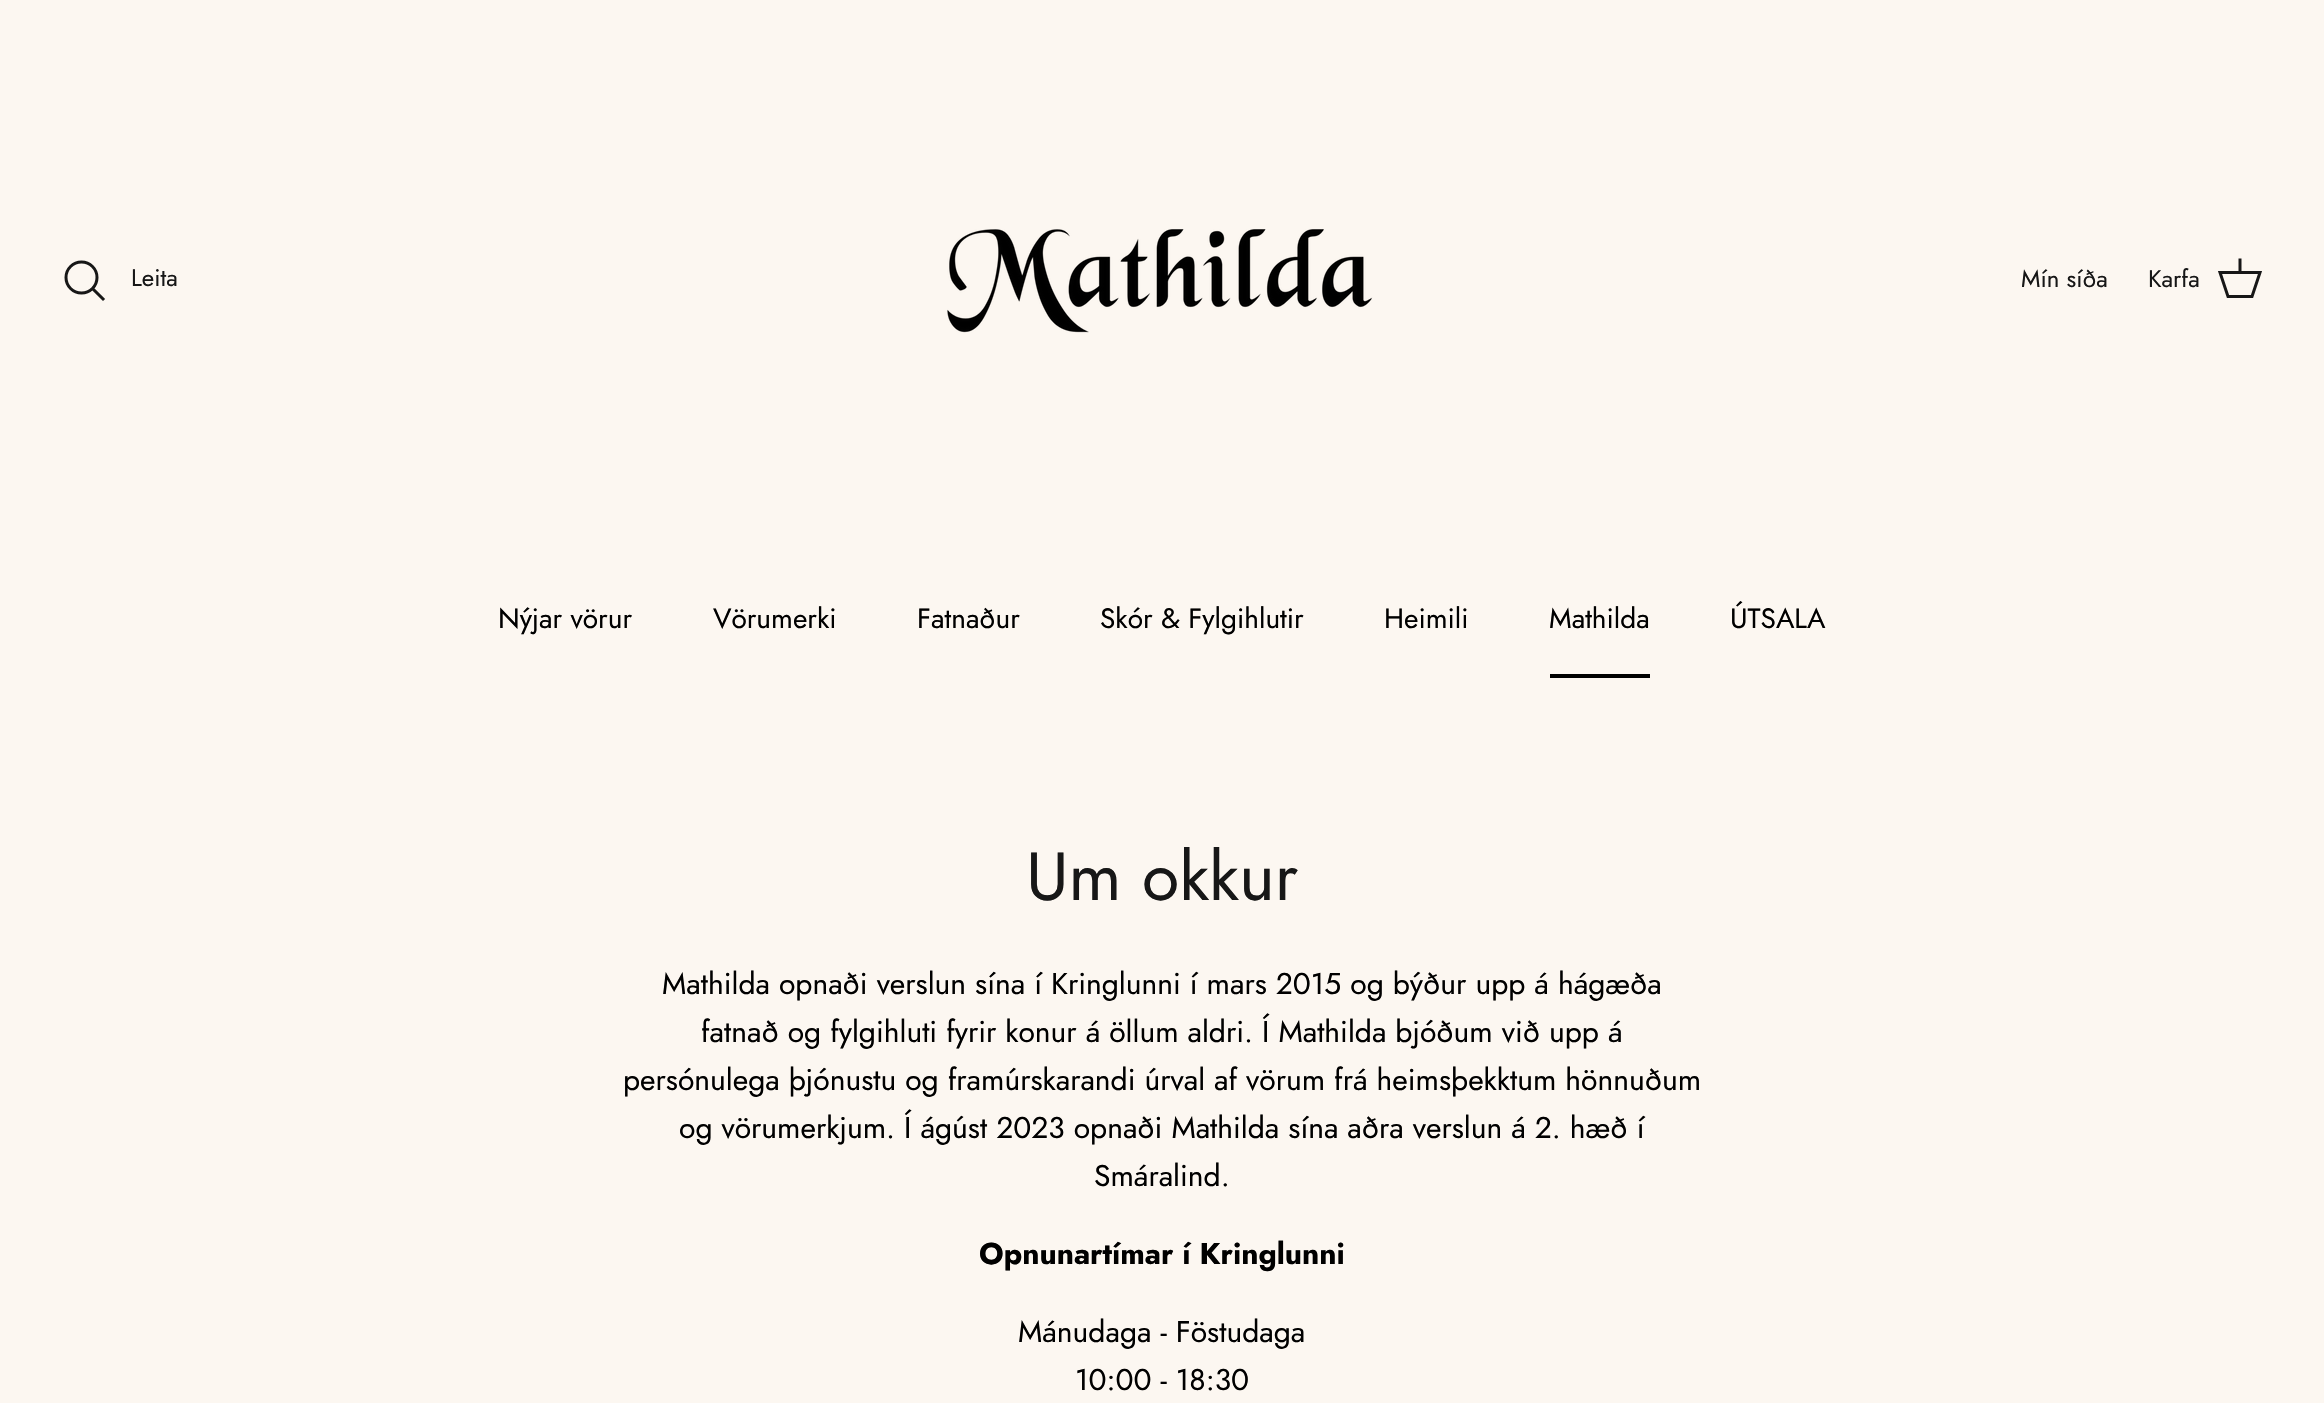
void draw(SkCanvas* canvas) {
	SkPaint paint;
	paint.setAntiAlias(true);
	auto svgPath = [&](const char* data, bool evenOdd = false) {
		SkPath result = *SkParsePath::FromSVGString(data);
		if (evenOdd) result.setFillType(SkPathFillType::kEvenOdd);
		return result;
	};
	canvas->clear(0xfffcf7f1);
	paint.setStroke(true);
	paint.setStrokeWidth(3);
	paint.setColor(0xff171717);
	canvas->drawCircle(81.5, 277.5, 15.5, paint);
	SkFont f1(fontMgr->matchFamilyStyle("Jost", SkFontStyle::Normal()), 24);
	f1.setSubpixel(true);
	paint.setStroke(false);
	canvas->drawString("Leita", 131, 286, f1, paint);
	paint.setStroke(true);
	paint.setStrokeCap(SkPaint::kSquare_Cap);
	canvas->drawPath(svgPath("M94 290L103 299"), paint);
	canvas->drawImageRect(SkImages::DeferredFromEncodedData(SkData::MakeFromFileName("img1.png")), SkRect::MakeXYWH(947, 229, 426, 104), SkSamplingOptions());
	paint.setStroke(false);
	canvas->drawString("Mín síða", 2021, 287, f1, paint);
	canvas->drawString("Karfa", 2148, 287, f1, paint);
	paint.setStroke(true);
	paint.setStrokeCap(SkPaint::kButt_Cap);
	canvas->drawPath(svgPath("M2220 272.5H2260L2252 296.5H2228Z"), paint);
	paint.setStrokeCap(SkPaint::kSquare_Cap);
	canvas->drawPath(svgPath("M2240 272V260"), paint);
	SkFont f2(fontMgr->matchFamilyStyle("Jost", SkFontStyle::Normal()), 28);
	f2.setSubpixel(true);
	paint.setStroke(false);
	paint.setColor(0xff000000);
	canvas->drawString("Nýjar vörur", 498, 628, f2, paint);
	canvas->drawString("Vörumerki", 713, 628, f2, paint);
	canvas->drawString("Fatnaður", 917, 628, f2, paint);
	canvas->drawString("Skór & Fylgihlutir", 1100, 628, f2, paint);
	canvas->drawString("Heimili", 1384, 628, f2, paint);
	canvas->drawString("Mathilda", 1549, 628, f2, paint);
	canvas->drawRect(SkRect::MakeXYWH(1550, 674, 100, 4), paint);
	canvas->drawString("ÚTSALA", 1730, 628, f2, paint);
	SkFont f3(fontMgr->matchFamilyStyle("Jost", SkFontStyle::Normal()), 68);
	f3.setSubpixel(true);
	paint.setColor(0xff171717);
	canvas->drawString("Um okkur", 1026, 900, f3, paint);
	SkFont f4(fontMgr->matchFamilyStyle("Jost", SkFontStyle::Normal()), 30);
	f4.setSubpixel(true);
	paint.setColor(0xff000000);
	canvas->drawString("Mathilda opnaði verslun sína í Kringlunni í mars 2015 og býður upp á hágæða", 662, 994, f4, paint);
	canvas->drawString("fatnað og fylgihluti fyrir konur á öllum aldri. Í Mathilda bjóðum við upp á", 701, 1042, f4, paint);
	canvas->drawString("persónulega þjónustu og framúrskarandi úrval af vörum frá heimsþekktum hönnuðum", 623, 1090, f4, paint);
	canvas->drawString("og vörumerkjum. Í ágúst 2023 opnaði Mathilda sína aðra verslun á 2. hæð í", 679, 1138, f4, paint);
	canvas->drawString("Smáralind.", 1094, 1186, f4, paint);
	SkFont f5(fontMgr->matchFamilyStyle("Jost", SkFontStyle::Bold()), 30);
	f5.setSubpixel(true);
	canvas->drawString("Opnunartímar í Kringlunni", 979, 1264, f5, paint);
	canvas->drawString("Mánudaga - Föstudaga", 1018, 1342, f4, paint);
	canvas->drawString("10:00 - 18:30", 1075, 1390, f4, paint);
}
